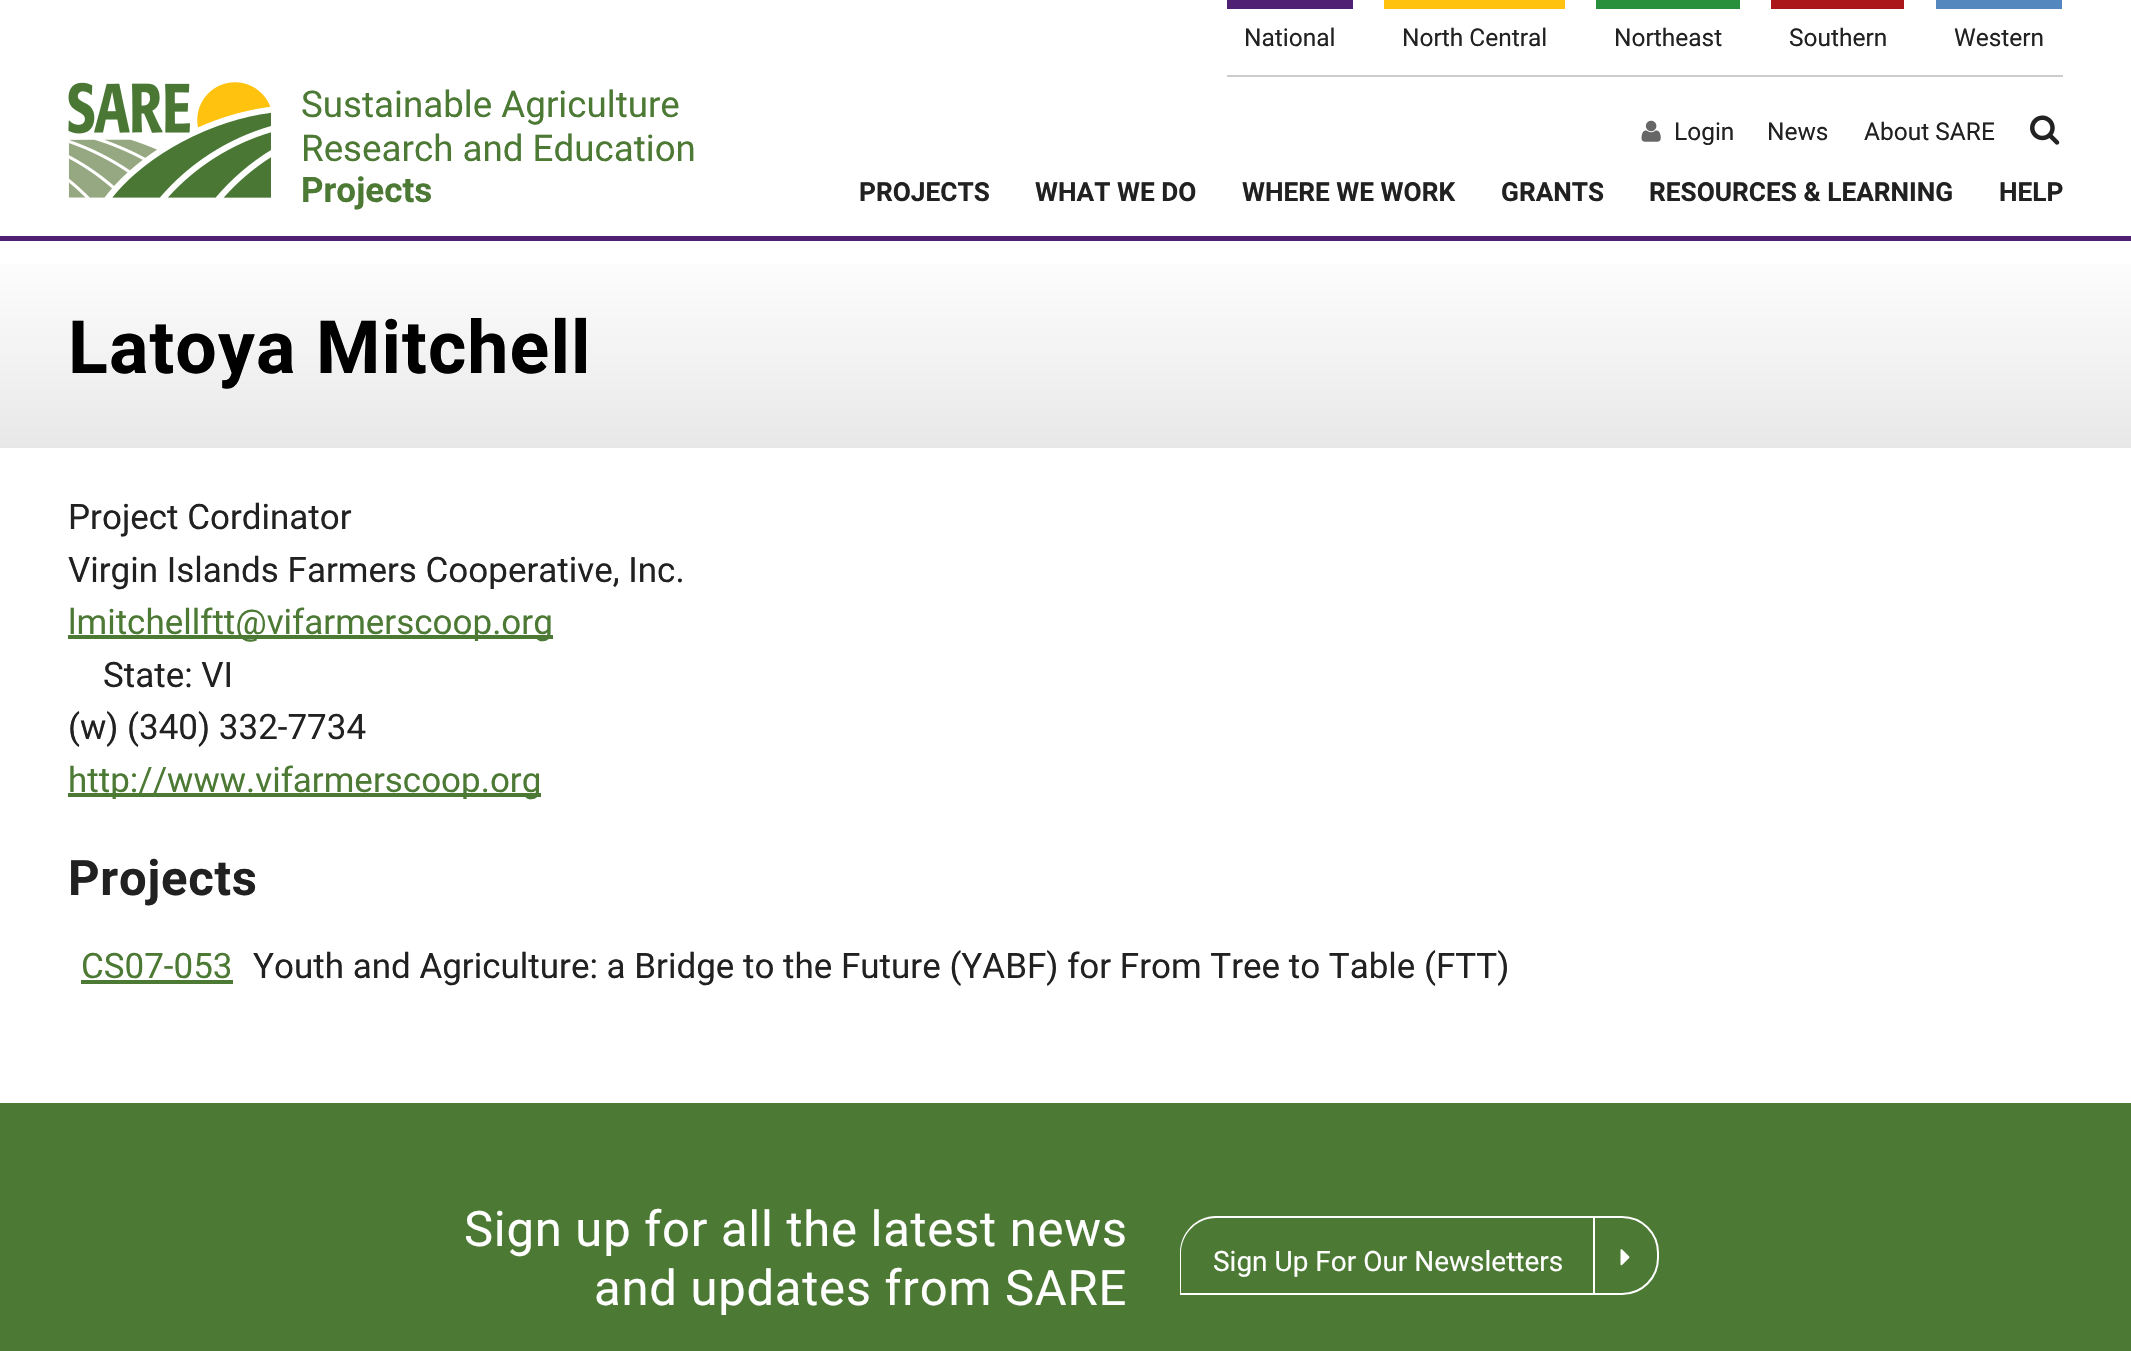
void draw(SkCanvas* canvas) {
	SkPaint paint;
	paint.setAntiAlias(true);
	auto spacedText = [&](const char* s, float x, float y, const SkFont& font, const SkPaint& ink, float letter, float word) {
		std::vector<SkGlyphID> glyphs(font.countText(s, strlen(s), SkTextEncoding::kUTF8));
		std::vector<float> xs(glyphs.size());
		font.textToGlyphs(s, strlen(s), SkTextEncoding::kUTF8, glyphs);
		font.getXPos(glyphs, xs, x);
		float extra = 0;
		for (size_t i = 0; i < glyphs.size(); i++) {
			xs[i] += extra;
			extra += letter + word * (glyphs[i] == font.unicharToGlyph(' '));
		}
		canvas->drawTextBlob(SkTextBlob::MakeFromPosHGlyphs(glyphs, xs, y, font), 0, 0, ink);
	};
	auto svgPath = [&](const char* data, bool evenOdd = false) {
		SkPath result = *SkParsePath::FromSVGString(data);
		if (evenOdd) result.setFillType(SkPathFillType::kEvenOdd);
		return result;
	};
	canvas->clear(0xffffffff);
	paint.setColor(0xff502074);
	canvas->drawRect(SkRect::MakeXYWH(0, 236, 2131, 5), paint);
	paint.setColor(0xffcccccc);
	canvas->drawRect(SkRect::MakeXYWH(1227, 75, 836, 2), paint);
	paint.setColor(0xff502074);
	canvas->drawRect(SkRect::MakeXYWH(1227, 0, 126, 9), paint);
	SkFont f1(fontMgr->matchFamilyStyle("Roboto", SkFontStyle::Normal()), 24.5);
	f1.setSubpixel(true);
	paint.setColor(0xff212121);
	canvas->drawString("National", 1244, 46, f1, paint);
	paint.setColor(0xffffc20e);
	canvas->drawRect(SkRect::MakeXYWH(1384, 0, 181, 9), paint);
	paint.setColor(0xff212121);
	canvas->drawString("North Central", 1402, 46, f1, paint);
	paint.setColor(0xff28903a);
	canvas->drawRect(SkRect::MakeXYWH(1596, 0, 144, 9), paint);
	paint.setColor(0xff212121);
	canvas->drawString("Northeast", 1614, 46, f1, paint);
	paint.setColor(0xffab161b);
	canvas->drawRect(SkRect::MakeXYWH(1771, 0, 133, 9), paint);
	paint.setColor(0xff212121);
	canvas->drawString("Southern", 1789, 46, f1, paint);
	paint.setColor(0xff5387be);
	canvas->drawRect(SkRect::MakeXYWH(1936, 0, 126, 9), paint);
	paint.setColor(0xff212121);
	canvas->drawString("Western", 1954, 46, f1, paint);
	canvas->drawImageRect(SkImages::DeferredFromEncodedData(SkData::MakeFromFileName("img1.png")), SkRect::MakeXYWH(68, 82, 203, 116), SkSamplingOptions());
	SkFont f2(fontMgr->matchFamilyStyle("Roboto", SkFontStyle::Normal()), 36.75);
	f2.setSubpixel(true);
	paint.setColor(0xff4c7934);
	canvas->drawString("Sustainable Agriculture", 301, 117, f2, paint);
	canvas->drawString("Research and Education", 301, 161, f2, paint);
	SkFont f3(fontMgr->matchFamilyStyle("Roboto", SkFontStyle::Bold()), 35);
	f3.setSubpixel(true);
	canvas->drawString("Projects", 301, 202, f3, paint);
	canvas->drawImageRect(SkImages::DeferredFromEncodedData(SkData::MakeFromFileName("img2.png")), SkRect::MakeXYWH(1641, 120, 20, 22), SkSamplingOptions());
	paint.setColor(0xff212121);
	canvas->drawString("Login", 1674, 140, f1, paint);
	canvas->drawString("News", 1767, 140, f1, paint);
	canvas->drawString("About SARE", 1864, 140, f1, paint);
	canvas->drawImageRect(SkImages::DeferredFromEncodedData(SkData::MakeFromFileName("img3.png")), SkRect::MakeXYWH(2030, 115, 30, 30), SkSamplingOptions());
	SkFont f4(fontMgr->matchFamilyStyle("Roboto", SkFontStyle::Bold()), 26.25);
	f4.setSubpixel(true);
	canvas->drawString("PROJECTS", 859, 201, f4, paint);
	canvas->drawString("WHAT WE DO", 1035, 201, f4, paint);
	canvas->drawString("WHERE WE WORK", 1242, 201, f4, paint);
	canvas->drawString("GRANTS", 1501, 201, f4, paint);
	canvas->drawString("RESOURCES & LEARNING", 1649, 201, f4, paint);
	canvas->drawString("HELP", 1999, 201, f4, paint);
	{
		const SkColor colors[] = {0xffffffff, 0xffe8e8e8};
		const float stops[] = {0, 1};
		const SkPoint ends[] = {{1066, 241}, {1066, 448}};
		paint.setShader(SkGradientShader::MakeLinear(ends, colors, stops, 2, SkTileMode::kClamp));
		paint.setAlpha(255);
	}
	canvas->drawRect(SkRect::MakeXYWH(0, 264, 2131, 184), paint);
	SkFont f5(fontMgr->matchFamilyStyle("Roboto", SkFontStyle::Bold()), 73.5);
	f5.setSubpixel(true);
	paint.setShader(nullptr);
	paint.setColor(0xff000000);
	spacedText("Latoya Mitchell", 68, 373, f5, paint, 1.1, 0);
	SkFont f6(fontMgr->matchFamilyStyle("Roboto", SkFontStyle::Normal()), 35);
	f6.setSubpixel(true);
	paint.setColor(0xff212121);
	canvas->drawString("Project Cordinator", 68, 529, f6, paint);
	canvas->drawString("Virgin Islands Farmers Cooperative, Inc.", 68, 582, f6, paint);
	paint.setColor(0xff4c7934);
	canvas->drawRect(SkRect::MakeXYWH(68, 635, 485, 4), paint);
	canvas->drawString("lmitchellftt@vifarmerscoop.org", 68, 634, f6, paint);
	paint.setColor(0xff212121);
	canvas->drawString("State: VI", 103, 687, f6, paint);
	canvas->drawString("(w) (340) 332-7734", 68, 739, f6, paint);
	paint.setColor(0xff4c7934);
	canvas->drawRect(SkRect::MakeXYWH(68, 793, 473, 4), paint);
	canvas->drawString("http://www.vifarmerscoop.org", 68, 792, f6, paint);
	SkFont f7(fontMgr->matchFamilyStyle("Roboto", SkFontStyle::Bold()), 49);
	f7.setSubpixel(true);
	paint.setColor(0xff212121);
	spacedText("Projects", 68, 895, f7, paint, 0.75, 0);
	paint.setColor(0xff4c7934);
	canvas->drawString("CS07-053", 81, 978, f6, paint);
	canvas->drawRect(SkRect::MakeXYWH(81, 980, 152, 4), paint);
	paint.setColor(0xff212121);
	canvas->drawString("Youth and Agriculture: a Bridge to the Future (YABF) for From Tree to Table (FTT)", 253, 978, f6, paint);
	paint.setColor(0xff4c7934);
	canvas->drawRect(SkRect::MakeXYWH(0, 1103, 2131, 248), paint);
	SkFont f8(fontMgr->matchFamilyStyle("Roboto", SkFontStyle::Normal()), 49);
	f8.setSubpixel(true);
	paint.setColor(0xffffffff);
	spacedText("Sign up for all the latest news", 464, 1246, f8, paint, 0.75, 0);
	spacedText("and updates from SARE", 594, 1305, f8, paint, 0.75, 0);
	canvas->drawPath(svgPath("M1216 1216H1594V1295H1180V1253C1180 1233 1196 1216 1216 1216ZM1216 1218H1594V1293H1181V1253C1181 1234 1197 1218 1216 1218Z", true), paint);
	SkFont f9(fontMgr->matchFamilyStyle("Roboto", SkFontStyle::Normal()), 28);
	f9.setSubpixel(true);
	canvas->drawString("Sign Up For Our Newsletters", 1213, 1271, f9, paint);
	paint.setStroke(true);
	paint.setStrokeWidth(2);
	canvas->drawPath(svgPath("M1594 1217H1622C1642 1217 1658 1233 1658 1253V1258C1658 1278 1642 1294 1622 1294H1594Z"), paint);
	canvas->drawImageRect(SkImages::DeferredFromEncodedData(SkData::MakeFromFileName("img4.png")), SkRect::MakeXYWH(1620, 1249, 10, 17), SkSamplingOptions());
}
